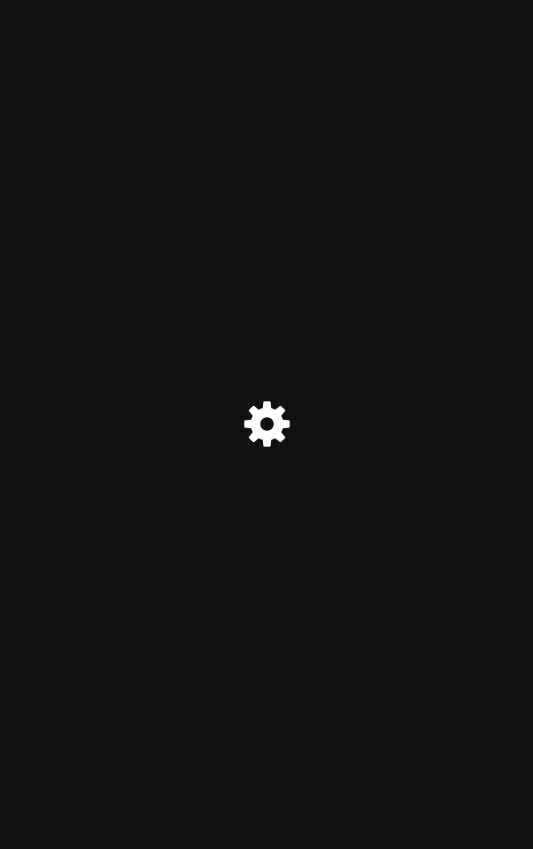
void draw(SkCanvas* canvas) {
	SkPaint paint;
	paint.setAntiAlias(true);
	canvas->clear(0xff111111);
	canvas->drawImageRect(SkImages::DeferredFromEncodedData(SkData::MakeFromFileName("img1.png")), SkRect::MakeXYWH(244, 401, 46, 46), SkSamplingOptions());
}
